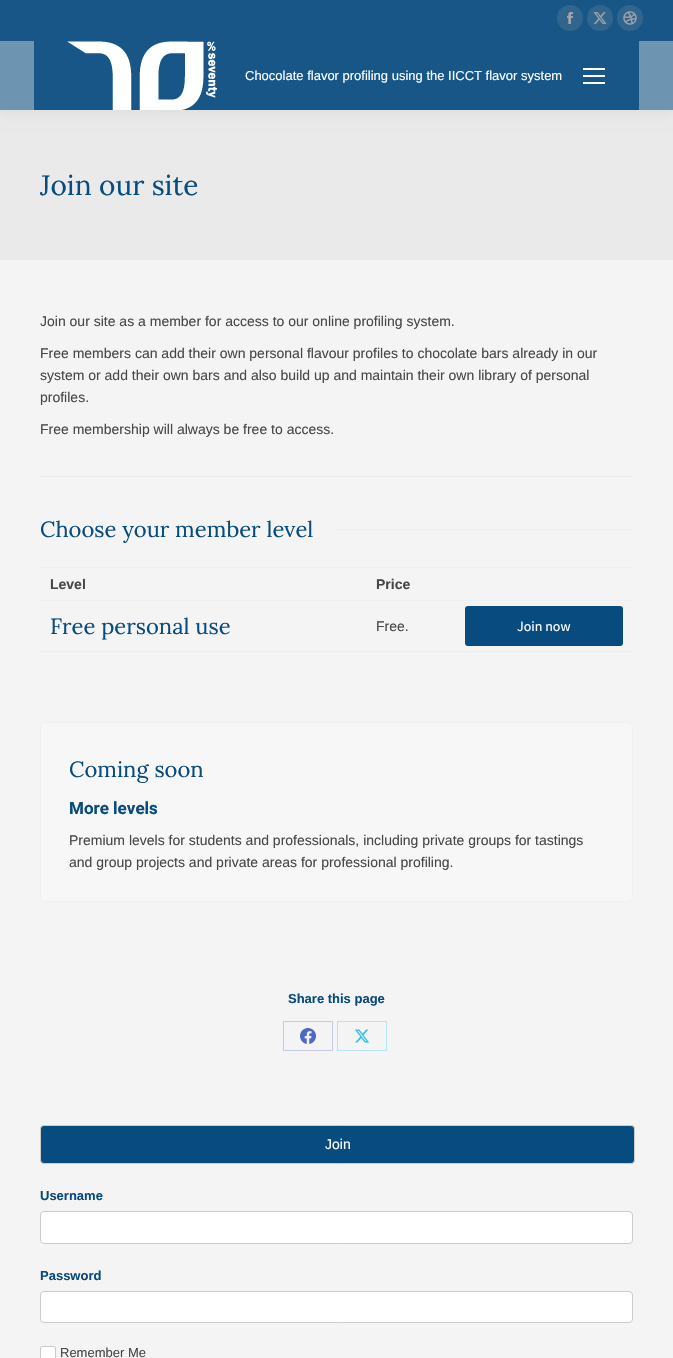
void draw(SkCanvas* canvas) {
	SkPaint paint;
	paint.setAntiAlias(true);
	canvas->clear(0xfff4f4f4);
	paint.setColor(0xffefefef);
	canvas->drawRect(SkRect::MakeXYWH(40, 567, 594, 1), paint);
	paint.setColor(0xffebebeb);
	canvas->drawRect(SkRect::MakeXYWH(366, 567, 1, 1), paint);
	paint.setColor(0xffefefef);
	canvas->drawRect(SkRect::MakeXYWH(40, 600, 594, 1), paint);
	paint.setColor(0xffebebeb);
	canvas->drawRect(SkRect::MakeXYWH(366, 600, 1, 1), paint);
	paint.setColor(0xffeaeaea);
	canvas->drawRect(SkRect::MakeXYWH(0, 110, 673, 150), paint);
	paint.setColor(0x12000000);
	paint.setMaskFilter(SkMaskFilter::MakeBlur(kNormal_SkBlurStyle, 7.5));
	canvas->drawRect(SkRect::MakeXYWH(-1, -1, 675, 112), paint);
	paint.setMaskFilter(nullptr);
	paint.setColor(0xff6d94b1);
	canvas->drawRect(SkRect::MakeXYWH(0, 41, 673, 69), paint);
	paint.setColor(0xff175686);
	canvas->drawRect(SkRect::MakeXYWH(0, 0, 673, 41), paint);
	paint.setColor(0xff32658d);
	canvas->drawCircle(570, 18, 13, paint);
	canvas->drawImageRect(SkImages::DeferredFromEncodedData(SkData::MakeFromFileName("img1.png")), SkRect::MakeXYWH(567, 12, 6, 12), SkSamplingOptions());
	canvas->drawCircle(600, 18, 13, paint);
	canvas->drawImageRect(SkImages::DeferredFromEncodedData(SkData::MakeFromFileName("img2.png")), SkRect::MakeXYWH(593, 12, 14, 12), SkSamplingOptions());
	canvas->drawCircle(630, 18, 13, paint);
	canvas->drawImageRect(SkImages::DeferredFromEncodedData(SkData::MakeFromFileName("img3.png")), SkRect::MakeXYWH(623, 11, 14, 14), SkSamplingOptions());
	paint.setColor(0xff175686);
	canvas->drawRect(SkRect::MakeXYWH(34, 41, 605, 69), paint);
	canvas->drawImageRect(SkImages::DeferredFromEncodedData(SkData::MakeFromFileName("img4.png")), SkRect::MakeXYWH(67, 41, 150, 69), SkSamplingOptions());
	SkFont f1(fontMgr->matchFamilyStyle("Liberation Sans", SkFontStyle::Normal()), 13);
	f1.setSubpixel(true);
	paint.setColor(0xffffffff);
	canvas->drawString("Chocolate flavor profiling using the IICCT flavor system", 245, 80, f1, paint);
	canvas->drawRect(SkRect::MakeXYWH(583, 68, 22, 2), paint);
	canvas->drawRect(SkRect::MakeXYWH(583, 75, 22, 2), paint);
	canvas->drawRect(SkRect::MakeXYWH(583, 82, 22, 2), paint);
	SkFont f2(fontMgr->matchFamilyStyle("Lora", SkFontStyle::Normal()), 28);
	f2.setSubpixel(true);
	paint.setColor(0xff084b7e);
	canvas->drawString("Join our site", 40, 195, f2, paint);
	SkFont f3(fontMgr->matchFamilyStyle("Liberation Sans", SkFontStyle::Normal()), 14);
	f3.setSubpixel(true);
	paint.setColor(0xff474747);
	canvas->drawString("Join our site as a member for access to our online profiling system.", 40, 326, f3, paint);
	canvas->drawString("Free members can add their own personal flavour profiles to chocolate bars already in our", 40, 358, f3, paint);
	canvas->drawString("system or add their own bars and also build up and maintain their own library of personal", 40, 380, f3, paint);
	canvas->drawString("profiles.", 40, 402, f3, paint);
	canvas->drawString("Free membership will always be free to access.", 40, 434, f3, paint);
	paint.setColor(0xffebebeb);
	canvas->drawRect(SkRect::MakeXYWH(40, 476, 593, 1), paint);
	SkFont f4(fontMgr->matchFamilyStyle("Lora", SkFontStyle::Normal()), 22);
	f4.setSubpixel(true);
	paint.setColor(0xff084b7e);
	canvas->drawString("Choose your member level", 40, 537, f4, paint);
	paint.setColor(0xffefefef);
	canvas->drawRect(SkRect::MakeXYWH(335, 529, 298, 1), paint);
	canvas->drawRect(SkRect::MakeXYWH(40, 651, 593, 1), paint);
	paint.setColor(0xffebebeb);
	canvas->drawRect(SkRect::MakeXYWH(454, 567, 1, 1), paint);
	SkFont f5(fontMgr->matchFamilyStyle("Liberation Sans", SkFontStyle::Bold()), 14);
	f5.setSubpixel(true);
	paint.setColor(0xff474747);
	canvas->drawString("Level", 50, 589, f5, paint);
	canvas->drawString("Price", 376, 589, f5, paint);
	paint.setColor(0xff084b7e);
	canvas->drawString("Free personal use", 50, 634, f4, paint);
	paint.setColor(0xff474747);
	canvas->drawString("Free.", 376, 631, f3, paint);
	paint.setColor(0xffebebeb);
	canvas->drawRect(SkRect::MakeXYWH(454, 600, 1, 1), paint);
	paint.setColor(0xff084b7e);
	canvas->drawRoundRect(SkRect::MakeXYWH(465, 606, 158, 40), 3, 3, paint);
	SkFont f6(fontMgr->matchFamilyStyle("Source Sans Pro", SkFontStyle::Normal()), 14);
	f6.setSubpixel(true);
	paint.setColor(0xffffffff);
	canvas->drawString("Join now", 517, 631, f6, paint);
	paint.setColor(0xfff7f7f7);
	canvas->drawRoundRect(SkRect::MakeXYWH(40.5, 722.5, 592, 179), 4.5, 4.5, paint);
	paint.setStroke(true);
	paint.setStrokeWidth(1);
	paint.setColor(0xfff0f0f0);
	canvas->drawRoundRect(SkRect::MakeXYWH(40.5, 722.5, 592, 179), 4.5, 4.5, paint);
	paint.setStroke(false);
	paint.setColor(0xff084b7e);
	canvas->drawString("Coming soon", 69, 777, f4, paint);
	SkFont f7(fontMgr->matchFamilyStyle("Roboto", SkFontStyle::Bold()), 17);
	f7.setSubpixel(true);
	canvas->drawString("More levels", 69, 814, f7, paint);
	paint.setColor(0xff474747);
	canvas->drawString("Premium levels for students and professionals, including private groups for tastings", 69, 845, f3, paint);
	canvas->drawString("and group projects and private areas for professional profiling.", 69, 867, f3, paint);
	SkFont f8(fontMgr->matchFamilyStyle("Liberation Sans", SkFontStyle::Bold()), 13);
	f8.setSubpixel(true);
	paint.setColor(0xff084b7e);
	canvas->drawString("Share this page", 288, 1003, f8, paint);
	paint.setStroke(true);
	paint.setColor(0xffc2cae7);
	canvas->drawRect(SkRect::MakeXYWH(283.5, 1021.5, 49, 29), paint);
	canvas->drawImageRect(SkImages::DeferredFromEncodedData(SkData::MakeFromFileName("img5.png")), SkRect::MakeXYWH(300, 1028, 16, 16), SkSamplingOptions());
	paint.setColor(0xffb7e4f1);
	canvas->drawRect(SkRect::MakeXYWH(337.5, 1021.5, 49, 29), paint);
	canvas->drawImageRect(SkImages::DeferredFromEncodedData(SkData::MakeFromFileName("img6.png")), SkRect::MakeXYWH(355, 1029, 15, 14), SkSamplingOptions());
	paint.setStroke(false);
	paint.setColor(0xff084b7e);
	canvas->drawRoundRect(SkRect::MakeXYWH(40.5, 1125.5, 594, 38), 3.5, 3.5, paint);
	paint.setStroke(true);
	paint.setColor(0xffcccccc);
	canvas->drawRoundRect(SkRect::MakeXYWH(40.5, 1125.5, 594, 38), 3.5, 3.5, paint);
	paint.setStroke(false);
	paint.setColor(0xffffffff);
	canvas->drawString("Join", 325, 1149, f3, paint);
	paint.setColor(0xff084b7e);
	canvas->drawString("Username", 40, 1200, f8, paint);
	paint.setColor(0xffffffff);
	canvas->drawRoundRect(SkRect::MakeXYWH(40.5, 1211.5, 592, 32), 3.5, 3.5, paint);
	paint.setStroke(true);
	paint.setColor(0xffcccccc);
	canvas->drawRoundRect(SkRect::MakeXYWH(40.5, 1211.5, 592, 32), 3.5, 3.5, paint);
	paint.setStroke(false);
	paint.setColor(0xff084b7e);
	canvas->drawString("Password", 40, 1280, f8, paint);
	paint.setColor(0xffffffff);
	canvas->drawRoundRect(SkRect::MakeXYWH(40.5, 1291.5, 592, 31), 3.5, 3.5, paint);
	paint.setStroke(true);
	paint.setColor(0xffcccccc);
	canvas->drawRoundRect(SkRect::MakeXYWH(40.5, 1291.5, 592, 31), 3.5, 3.5, paint);
	paint.setStroke(false);
	paint.setColor(0xffffffff);
	canvas->drawRoundRect(SkRect::MakeXYWH(40.5, 1346.5, 15, 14), 1.5, 1.5, paint);
	paint.setStroke(true);
	paint.setColor(0xffcccccc);
	canvas->drawRoundRect(SkRect::MakeXYWH(40.5, 1346.5, 15, 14), 1.5, 1.5, paint);
	paint.setStroke(false);
	paint.setColor(0xff474747);
	canvas->drawString("Remember Me", 60, 1357, f1, paint);
}
